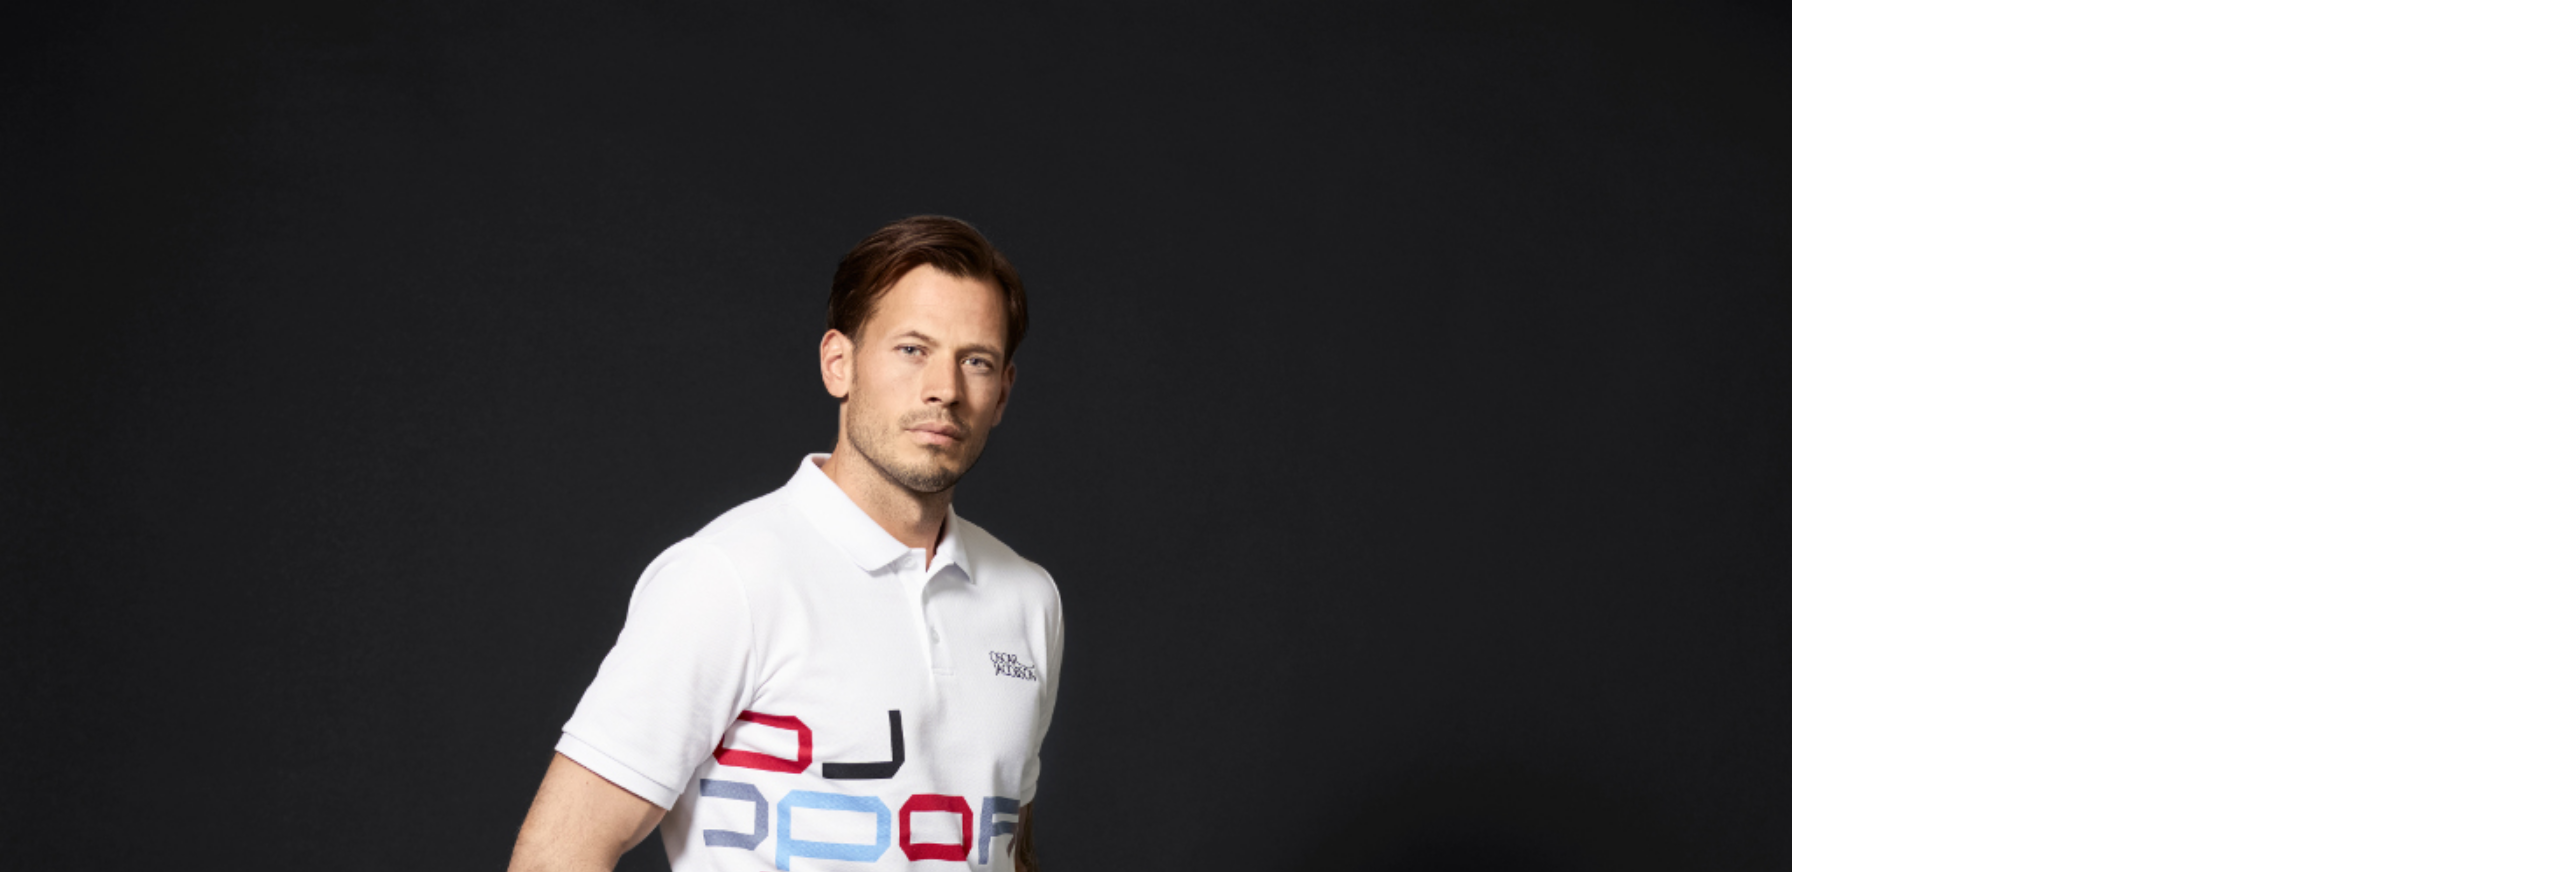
void draw(SkCanvas* canvas) {
	SkPaint paint;
	paint.setAntiAlias(true);
	canvas->clear(0xffffffff);
	canvas->drawImageRect(SkImages::DeferredFromEncodedData(SkData::MakeFromFileName("img1.png")), SkRect::MakeXYWH(0, 0, 1792, 872), SkSamplingOptions());
}
